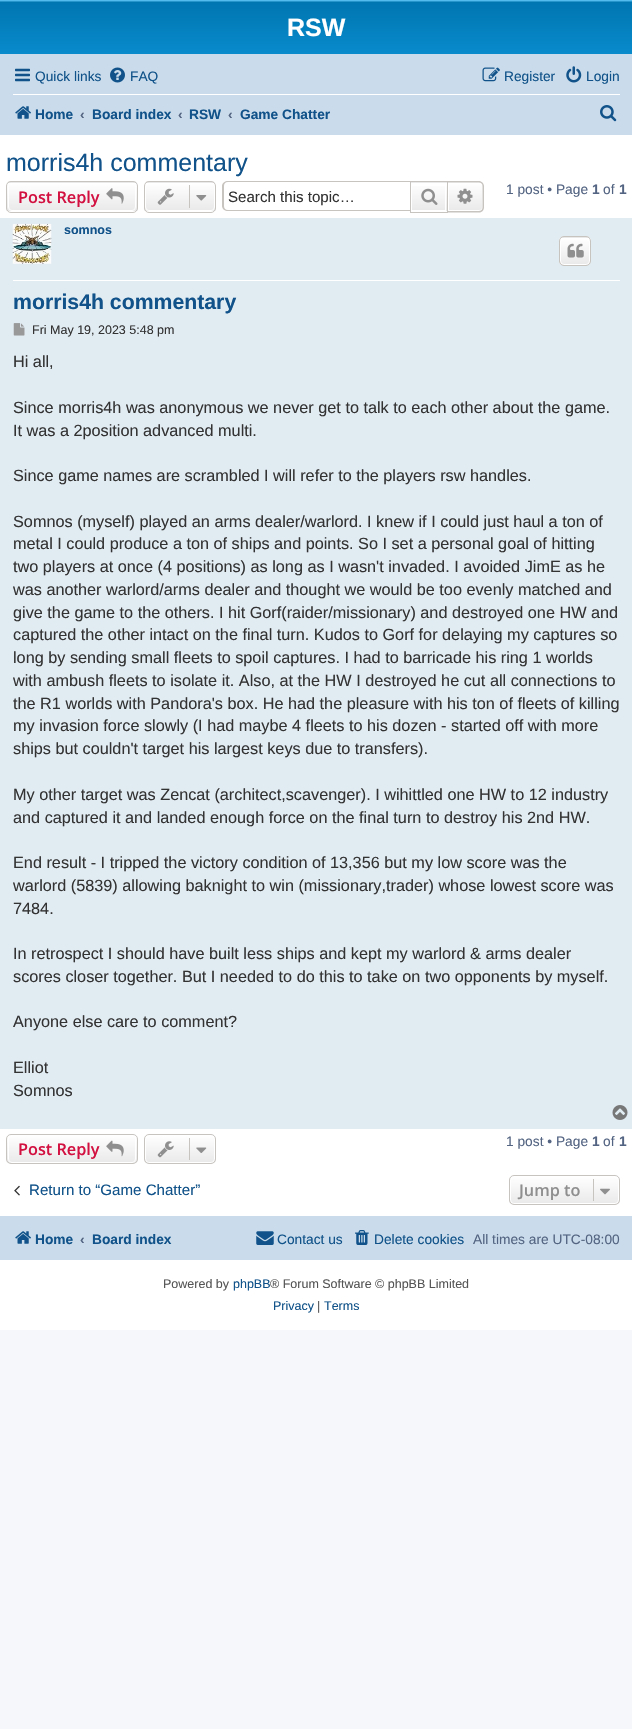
void draw(SkCanvas* canvas) {
	SkPaint paint;
	paint.setAntiAlias(true);
	auto svgPath = [&](const char* data, bool evenOdd = false) {
		SkPath result = *SkParsePath::FromSVGString(data);
		if (evenOdd) result.setFillType(SkPathFillType::kEvenOdd);
		return result;
	};
	canvas->clear(0xfff5f7fa);
	paint.setColor(0xffffffff);
	canvas->drawRect(SkRect::MakeXYWH(0, 135, 632, 1195), paint);
	{
		const SkColor colors[] = {0xff6aceff, 0xff0076b1, 0xff12a3eb};
		const float stops[] = {0, 0.02, 1};
		const SkPoint ends[] = {{316, 0}, {316, 115}};
		paint.setShader(SkGradientShader::MakeLinear(ends, colors, stops, 3, SkTileMode::kClamp));
		paint.setAlpha(255);
	}
	canvas->drawRect(SkRect::MakeXYWH(0, 0, 632, 54), paint);
	SkFont f1(fontMgr->matchFamilyStyle("Liberation Sans", SkFontStyle::Bold()), 25);
	f1.setSubpixel(true);
	paint.setShader(nullptr);
	paint.setColor(0xffffffff);
	canvas->drawString("RSW", 287, 36, f1, paint);
	paint.setColor(0xffcadceb);
	canvas->drawRect(SkRect::MakeXYWH(0, 54, 632, 81), paint);
	canvas->drawImageRect(SkImages::DeferredFromEncodedData(SkData::MakeFromFileName("img1.png")), SkRect::MakeXYWH(15, 68, 15, 14), SkSamplingOptions());
	SkFont f2(fontMgr->matchFamilyStyle("Liberation Sans", SkFontStyle::Normal()), 13.75);
	f2.setSubpixel(true);
	paint.setColor(0xff105289);
	canvas->drawString("Quick links", 35, 81, f2, paint);
	canvas->drawImageRect(SkImages::DeferredFromEncodedData(SkData::MakeFromFileName("img2.png")), SkRect::MakeXYWH(110, 67, 15, 16), SkSamplingOptions());
	canvas->drawString("FAQ", 130, 81, f2, paint);
	canvas->drawImageRect(SkImages::DeferredFromEncodedData(SkData::MakeFromFileName("img3.png")), SkRect::MakeXYWH(482, 67, 18, 15), SkSamplingOptions());
	canvas->drawString("Register", 504, 81, f2, paint);
	canvas->drawImageRect(SkImages::DeferredFromEncodedData(SkData::MakeFromFileName("img4.png")), SkRect::MakeXYWH(566, 66, 16, 17), SkSamplingOptions());
	canvas->drawString("Login", 586, 81, f2, paint);
	paint.setColor(0xffffffff);
	canvas->drawRect(SkRect::MakeXYWH(13, 94, 607, 1), paint);
	canvas->drawImageRect(SkImages::DeferredFromEncodedData(SkData::MakeFromFileName("img5.png")), SkRect::MakeXYWH(15, 106, 16, 13), SkSamplingOptions());
	SkFont f3(fontMgr->matchFamilyStyle("Liberation Sans", SkFontStyle::Bold()), 13.75);
	f3.setSubpixel(true);
	paint.setColor(0xff105289);
	canvas->drawString("Home", 35, 119, f3, paint);
	paint.setColor(0xff536482);
	canvas->drawString("‹", 80, 119, f3, paint);
	paint.setColor(0xff105289);
	canvas->drawString("Board index", 92, 119, f3, paint);
	paint.setColor(0xff536482);
	canvas->drawString("‹", 178, 119, f3, paint);
	paint.setColor(0xff105289);
	canvas->drawString("RSW", 189, 119, f3, paint);
	paint.setColor(0xff536482);
	canvas->drawString("‹", 228, 119, f3, paint);
	paint.setColor(0xff105289);
	canvas->drawString("Game Chatter", 240, 119, f3, paint);
	canvas->drawImageRect(SkImages::DeferredFromEncodedData(SkData::MakeFromFileName("img6.png")), SkRect::MakeXYWH(600, 105, 17, 17), SkSamplingOptions());
	SkFont f4(fontMgr->matchFamilyStyle("Liberation Sans", SkFontStyle::Normal()), 25);
	f4.setSubpixel(true);
	canvas->drawString("morris4h commentary", 6, 171, f4, paint);
	canvas->save();
	canvas->clipPath(svgPath("M11 181H133C136 181 138 183 138 186V208C138 211 136 213 133 213H11C8 213 6 211 6 208V186C6 183 8 181 11 181Z"), true);
	{
		const SkColor colors[] = {0xffffffff, 0xffe9e9e9};
		const float stops[] = {0, 1};
		const SkPoint ends[] = {{72, 154}, {72, 183}};
		paint.setShader(SkGradientShader::MakeLinear(ends, colors, stops, 2, SkTileMode::kClamp));
		paint.setAlpha(255);
	}
	canvas->drawRect(SkRect::MakeXYWH(6, 181, 132, 2), paint);
	{
		const SkColor colors[] = {0xffffffff, 0xffe9e9e9};
		const float stops[] = {0, 1};
		const SkPoint ends[] = {{72, 183}, {72, 211}};
		paint.setShader(SkGradientShader::MakeLinear(ends, colors, stops, 2, SkTileMode::kClamp));
		paint.setAlpha(255);
	}
	canvas->drawRect(SkRect::MakeXYWH(6, 183, 132, 28), paint);
	canvas->restore();
	paint.setStroke(true);
	paint.setStrokeWidth(1);
	paint.setShader(nullptr);
	paint.setColor(0xffffffff);
	canvas->drawRoundRect(SkRect::MakeXYWH(8.5, 183.5, 127, 27), 3.5, 3.5, paint);
	paint.setColor(0xffc7c3bf);
	canvas->drawRoundRect(SkRect::MakeXYWH(6.5, 181.5, 131, 31), 4.5, 4.5, paint);
	SkFont f5(fontMgr->matchFamilyStyle("Open Sans", SkFontStyle(600, SkFontStyle::kNormal_Width, SkFontStyle::kUpright_Slant)), 16.25);
	f5.setSubpixel(true);
	paint.setStroke(false);
	paint.setColor(0xffd31141);
	canvas->drawString("Post Reply", 18, 203, f5, paint);
	canvas->drawImageRect(SkImages::DeferredFromEncodedData(SkData::MakeFromFileName("img7.png")), SkRect::MakeXYWH(106, 188, 18, 16), SkSamplingOptions());
	canvas->save();
	canvas->clipPath(svgPath("M149 181H211C214 181 216 183 216 186V208C216 211 214 213 211 213H149C146 213 144 211 144 208V186C144 183 146 181 149 181Z"), true);
	{
		const SkColor colors[] = {0xffffffff, 0xffe9e9e9};
		const float stops[] = {0, 1};
		const SkPoint ends[] = {{180, 154}, {180, 183}};
		paint.setShader(SkGradientShader::MakeLinear(ends, colors, stops, 2, SkTileMode::kClamp));
		paint.setAlpha(255);
	}
	canvas->drawRect(SkRect::MakeXYWH(144, 181, 72, 2), paint);
	{
		const SkColor colors[] = {0xffffffff, 0xffe9e9e9};
		const float stops[] = {0, 1};
		const SkPoint ends[] = {{180, 183}, {180, 211}};
		paint.setShader(SkGradientShader::MakeLinear(ends, colors, stops, 2, SkTileMode::kClamp));
		paint.setAlpha(255);
	}
	canvas->drawRect(SkRect::MakeXYWH(144, 183, 72, 28), paint);
	canvas->restore();
	paint.setStroke(true);
	paint.setShader(nullptr);
	paint.setColor(0xffffffff);
	canvas->drawRoundRect(SkRect::MakeXYWH(145.5, 183.5, 69, 27), 3.5, 3.5, paint);
	paint.setColor(0xffc7c3bf);
	canvas->drawRoundRect(SkRect::MakeXYWH(144.5, 181.5, 71, 31), 4.5, 4.5, paint);
	canvas->drawImageRect(SkImages::DeferredFromEncodedData(SkData::MakeFromFileName("img8.png")), SkRect::MakeXYWH(157, 188, 17, 17), SkSamplingOptions());
	paint.setStroke(false);
	canvas->drawRect(SkRect::MakeXYWH(189, 185, 1, 23), paint);
	canvas->drawImageRect(SkImages::DeferredFromEncodedData(SkData::MakeFromFileName("img9.png")), SkRect::MakeXYWH(196, 195, 11, 6), SkSamplingOptions());
	canvas->drawPath(svgPath("M228 181H410V211H228C225 211 222 209 222 206V186C222 183 225 181 228 181ZM228 182H410V210H228C225 210 224 208 224 206V186C224 184 225 182 228 182Z", true), paint);
	SkFont f6(fontMgr->matchFamilyStyle("Liberation Sans", SkFontStyle::Normal()), 15.1);
	f6.setSubpixel(true);
	paint.setColor(0xff333333);
	canvas->drawString("Search this topic…", 228, 202, f6, paint);
	paint.setColor(0xffe9e9e9);
	canvas->drawRect(SkRect::MakeXYWH(411, 182, 36, 1), paint);
	{
		const SkColor colors[] = {0xffffffff, 0xffe9e9e9};
		const float stops[] = {0, 1};
		const SkPoint ends[] = {{429, 183}, {429, 211}};
		paint.setShader(SkGradientShader::MakeLinear(ends, colors, stops, 2, SkTileMode::kClamp));
		paint.setAlpha(255);
	}
	canvas->drawRect(SkRect::MakeXYWH(412, 186, 35, 25), paint);
	paint.setStroke(true);
	paint.setShader(nullptr);
	paint.setColor(0xffffffff);
	canvas->drawRect(SkRect::MakeXYWH(411.5, 183.5, 34, 27), paint);
	paint.setColor(0xffc7c3bf);
	canvas->drawRect(SkRect::MakeXYWH(410.5, 181.5, 37, 31), paint);
	canvas->drawImageRect(SkImages::DeferredFromEncodedData(SkData::MakeFromFileName("img10.png")), SkRect::MakeXYWH(421, 188, 17, 17), SkSamplingOptions());
	paint.setStroke(false);
	{
		const SkColor colors[] = {0xffffffff, 0xffe9e9e9};
		const float stops[] = {0, 1};
		const SkPoint ends[] = {{465, 183}, {465, 211}};
		paint.setShader(SkGradientShader::MakeLinear(ends, colors, stops, 2, SkTileMode::kClamp));
		paint.setAlpha(255);
	}
	canvas->drawPath(svgPath("M448.5 183.5H479C481 183.5 482.5 185 482.5 187V207C482.5 209 481 210.5 479 210.5H448.5Z"), paint);
	paint.setStroke(true);
	paint.setShader(nullptr);
	paint.setColor(0xffffffff);
	canvas->drawPath(svgPath("M448.5 183.5H479C481 183.5 482.5 185 482.5 187V207C482.5 209 481 210.5 479 210.5H448.5Z"), paint);
	paint.setStroke(false);
	paint.setColor(0xffc7c3bf);
	canvas->drawPath(svgPath("M447.5 181H479C481.5 181 484 183.5 484 186V207.5C484 210.5 481.5 212.5 479 212.5H447.5ZM447.5 182.5H479C481 182.5 482.5 184 482.5 186V207.5C482.5 209.5 481 211 479 211H447.5Z", true), paint);
	canvas->drawImageRect(SkImages::DeferredFromEncodedData(SkData::MakeFromFileName("img11.png")), SkRect::MakeXYWH(457, 188, 16, 16), SkSamplingOptions());
	paint.setColor(0xff536482);
	canvas->drawString("1 post • Page", 506, 194, f2, paint);
	canvas->drawString("1", 592, 194, f3, paint);
	canvas->drawString("of", 603, 194, f2, paint);
	canvas->drawString("1", 619, 194, f3, paint);
	paint.setColor(0xffe1ebf2);
	canvas->drawRect(SkRect::MakeXYWH(0, 218, 632, 911), paint);
	paint.setColor(0xffffffff);
	canvas->drawRect(SkRect::MakeXYWH(13, 280, 607, 1), paint);
	canvas->drawImageRect(SkImages::DeferredFromEncodedData(SkData::MakeFromFileName("img12.png")), SkRect::MakeXYWH(12, 223, 40, 41), SkSamplingOptions());
	SkFont f7(fontMgr->matchFamilyStyle("Liberation Sans", SkFontStyle::Bold()), 12.5);
	f7.setSubpixel(true);
	paint.setColor(0xff105289);
	canvas->drawString("somnos", 64, 234, f7, paint);
	canvas->save();
	canvas->clipPath(svgPath("M564 236H586C589 236 591 238 591 241V261C591 264 589 266 586 266H564C561 266 559 264 559 261V241C559 238 561 236 564 236Z"), true);
	{
		const SkColor colors[] = {0xffffffff, 0xffe9e9e9};
		const float stops[] = {0, 1};
		const SkPoint ends[] = {{575, 210}, {575, 238}};
		paint.setShader(SkGradientShader::MakeLinear(ends, colors, stops, 2, SkTileMode::kClamp));
		paint.setAlpha(255);
	}
	canvas->drawRect(SkRect::MakeXYWH(559, 236, 32, 2), paint);
	{
		const SkColor colors[] = {0xffffffff, 0xffe9e9e9};
		const float stops[] = {0, 1};
		const SkPoint ends[] = {{575, 238}, {575, 265}};
		paint.setShader(SkGradientShader::MakeLinear(ends, colors, stops, 2, SkTileMode::kClamp));
		paint.setAlpha(255);
	}
	canvas->drawRect(SkRect::MakeXYWH(559, 238, 32, 27), paint);
	canvas->restore();
	paint.setStroke(true);
	paint.setShader(nullptr);
	paint.setColor(0xffffffff);
	canvas->drawRoundRect(SkRect::MakeXYWH(560.5, 238.5, 29, 26), 3.5, 3.5, paint);
	paint.setColor(0xffc7c3bf);
	canvas->drawRoundRect(SkRect::MakeXYWH(559.5, 236.5, 31, 29), 4.5, 4.5, paint);
	canvas->drawImageRect(SkImages::DeferredFromEncodedData(SkData::MakeFromFileName("img13.png")), SkRect::MakeXYWH(567, 243, 17, 15), SkSamplingOptions());
	SkFont f8(fontMgr->matchFamilyStyle("Liberation Sans", SkFontStyle::Bold()), 21.25);
	f8.setSubpixel(true);
	paint.setStroke(false);
	paint.setColor(0xff105289);
	canvas->drawString("morris4h commentary", 13, 309, f8, paint);
	canvas->drawImageRect(SkImages::DeferredFromEncodedData(SkData::MakeFromFileName("img14.png")), SkRect::MakeXYWH(13, 323, 12, 13), SkSamplingOptions());
	SkFont f9(fontMgr->matchFamilyStyle("Liberation Sans", SkFontStyle::Normal()), 12.5);
	f9.setSubpixel(true);
	paint.setColor(0xff333333);
	canvas->drawString("Fri May 19, 2023 5:48 pm", 32, 334, f9, paint);
	SkFont f10(fontMgr->matchFamilyStyle("Liberation Sans", SkFontStyle::Normal()), 16.25);
	f10.setSubpixel(true);
	canvas->drawString("Hi all,", 13, 367, f10, paint);
	canvas->drawString("Since morris4h was anonymous we never get to talk to each other about the game.", 13, 413, f10, paint);
	canvas->drawString("It was a 2position advanced multi.", 13, 436, f10, paint);
	canvas->drawString("Since game names are scrambled I will refer to the players rsw handles.", 13, 481, f10, paint);
	canvas->drawString("Somnos (myself) played an arms dealer/warlord. I knew if I could just haul a ton of", 13, 527, f10, paint);
	canvas->drawString("metal I could produce a ton of ships and points. So I set a personal goal of hitting", 13, 549, f10, paint);
	canvas->drawString("two players at once (4 positions) as long as I wasn't invaded. I avoided JimE as he", 13, 572, f10, paint);
	canvas->drawString("was another warlord/arms dealer and thought we would be too evenly matched and", 13, 595, f10, paint);
	canvas->drawString("give the game to the others. I hit Gorf(raider/missionary) and destroyed one HW and", 13, 618, f10, paint);
	canvas->drawString("captured the other intact on the final turn. Kudos to Gorf for delaying my captures so", 13, 640, f10, paint);
	canvas->drawString("long by sending small fleets to spoil captures. I had to barricade his ring 1 worlds", 13, 663, f10, paint);
	canvas->drawString("with ambush fleets to isolate it. Also, at the HW I destroyed he cut all connections to", 13, 686, f10, paint);
	canvas->drawString("the R1 worlds with Pandora's box. He had the pleasure with his ton of fleets of killing", 13, 709, f10, paint);
	canvas->drawString("my invasion force slowly (I had maybe 4 fleets to his dozen - started off with more", 13, 731, f10, paint);
	canvas->drawString("ships but couldn't target his largest keys due to transfers).", 13, 754, f10, paint);
	canvas->drawString("My other target was Zencat (architect,scavenger). I wihittled one HW to 12 industry", 13, 800, f10, paint);
	canvas->drawString("and captured it and landed enough force on the final turn to destroy his 2nd HW.", 13, 823, f10, paint);
	canvas->drawString("End result - I tripped the victory condition of 13,356 but my low score was the", 13, 868, f10, paint);
	canvas->drawString("warlord (5839) allowing baknight to win (missionary,trader) whose lowest score was", 13, 891, f10, paint);
	canvas->drawString("7484.", 13, 914, f10, paint);
	canvas->drawString("In retrospect I should have built less ships and kept my warlord & arms dealer", 13, 959, f10, paint);
	canvas->drawString("scores closer together. But I needed to do this to take on two opponents by myself.", 13, 982, f10, paint);
	canvas->drawString("Anyone else care to comment?", 13, 1027, f10, paint);
	canvas->drawString("Elliot", 13, 1073, f10, paint);
	canvas->drawString("Somnos", 13, 1096, f10, paint);
	canvas->drawImageRect(SkImages::DeferredFromEncodedData(SkData::MakeFromFileName("img15.png")), SkRect::MakeXYWH(612, 1105, 16, 15), SkSamplingOptions());
	canvas->save();
	canvas->clipPath(svgPath("M11 1134H133C136 1134 138 1136 138 1139V1159C138 1162 136 1164 133 1164H11C8 1164 6 1162 6 1159V1139C6 1136 8 1134 11 1134Z"), true);
	{
		const SkColor colors[] = {0xffffffff, 0xffe9e9e9};
		const float stops[] = {0, 1};
		const SkPoint ends[] = {{72, 1135}, {72, 1163}};
		paint.setShader(SkGradientShader::MakeLinear(ends, colors, stops, 2, SkTileMode::kClamp));
		paint.setAlpha(255);
	}
	canvas->drawRect(SkRect::MakeXYWH(6, 1135, 132, 28), paint);
	canvas->restore();
	paint.setStroke(true);
	paint.setShader(nullptr);
	paint.setColor(0xffffffff);
	canvas->drawRoundRect(SkRect::MakeXYWH(8.5, 1135.5, 127, 27), 3.5, 3.5, paint);
	paint.setColor(0xffc7c3bf);
	canvas->drawRoundRect(SkRect::MakeXYWH(6.5, 1134.5, 131, 29), 4.5, 4.5, paint);
	paint.setStroke(false);
	paint.setColor(0xffd31141);
	canvas->drawString("Post Reply", 18, 1155, f5, paint);
	canvas->drawImageRect(SkImages::DeferredFromEncodedData(SkData::MakeFromFileName("img16.png")), SkRect::MakeXYWH(106, 1140, 18, 17), SkSamplingOptions());
	canvas->save();
	canvas->clipPath(svgPath("M149 1134H211C214 1134 216 1136 216 1139V1159C216 1162 214 1164 211 1164H149C146 1164 144 1162 144 1159V1139C144 1136 146 1134 149 1134Z"), true);
	{
		const SkColor colors[] = {0xffffffff, 0xffe9e9e9};
		const float stops[] = {0, 1};
		const SkPoint ends[] = {{180, 1135}, {180, 1163}};
		paint.setShader(SkGradientShader::MakeLinear(ends, colors, stops, 2, SkTileMode::kClamp));
		paint.setAlpha(255);
	}
	canvas->drawRect(SkRect::MakeXYWH(144, 1135, 72, 28), paint);
	canvas->restore();
	paint.setStroke(true);
	paint.setShader(nullptr);
	paint.setColor(0xffffffff);
	canvas->drawRoundRect(SkRect::MakeXYWH(145.5, 1135.5, 69, 27), 3.5, 3.5, paint);
	paint.setColor(0xffc7c3bf);
	canvas->drawRoundRect(SkRect::MakeXYWH(144.5, 1134.5, 71, 29), 4.5, 4.5, paint);
	canvas->drawImageRect(SkImages::DeferredFromEncodedData(SkData::MakeFromFileName("img17.png")), SkRect::MakeXYWH(157, 1141, 17, 17), SkSamplingOptions());
	paint.setStroke(false);
	canvas->drawRect(SkRect::MakeXYWH(189, 1138, 1, 22), paint);
	canvas->drawImageRect(SkImages::DeferredFromEncodedData(SkData::MakeFromFileName("img18.png")), SkRect::MakeXYWH(196, 1147, 11, 6), SkSamplingOptions());
	paint.setColor(0xff536482);
	canvas->drawString("1 post • Page", 506, 1146, f2, paint);
	canvas->drawString("1", 592, 1146, f3, paint);
	canvas->drawString("of", 603, 1146, f2, paint);
	canvas->drawString("1", 619, 1146, f3, paint);
	canvas->drawImageRect(SkImages::DeferredFromEncodedData(SkData::MakeFromFileName("img19.png")), SkRect::MakeXYWH(14, 1185, 6, 11), SkSamplingOptions());
	paint.setColor(0xff105289);
	canvas->drawString("Return to “Game Chatter”", 29, 1195, f6, paint);
	canvas->save();
	canvas->clipPath(svgPath("M514 1175H615C618 1175 620 1177 620 1180V1200C620 1203 618 1205 615 1205H514C511 1205 509 1203 509 1200V1180C509 1177 511 1175 514 1175Z"), true);
	{
		const SkColor colors[] = {0xffffffff, 0xffe9e9e9};
		const float stops[] = {0, 1};
		const SkPoint ends[] = {{564, 1176}, {564, 1204}};
		paint.setShader(SkGradientShader::MakeLinear(ends, colors, stops, 2, SkTileMode::kClamp));
		paint.setAlpha(255);
	}
	canvas->drawRect(SkRect::MakeXYWH(509, 1176, 111, 28), paint);
	canvas->restore();
	paint.setStroke(true);
	paint.setShader(nullptr);
	paint.setColor(0xffffffff);
	canvas->drawRoundRect(SkRect::MakeXYWH(510.5, 1176.5, 108, 27), 3.5, 3.5, paint);
	paint.setColor(0xffc7c3bf);
	canvas->drawRoundRect(SkRect::MakeXYWH(509.5, 1175.5, 110, 29), 4.5, 4.5, paint);
	paint.setStroke(false);
	paint.setColor(0xff8f8f8f);
	canvas->drawString("Jump to", 519, 1196, f5, paint);
	paint.setColor(0xffc7c3bf);
	canvas->drawRect(SkRect::MakeXYWH(593, 1179, 1, 22), paint);
	canvas->drawImageRect(SkImages::DeferredFromEncodedData(SkData::MakeFromFileName("img20.png")), SkRect::MakeXYWH(600, 1188, 10, 7), SkSamplingOptions());
	paint.setColor(0xffcadceb);
	canvas->drawRect(SkRect::MakeXYWH(0, 1216, 632, 44), paint);
	canvas->drawImageRect(SkImages::DeferredFromEncodedData(SkData::MakeFromFileName("img5.png")), SkRect::MakeXYWH(15, 1231, 16, 13), SkSamplingOptions());
	paint.setColor(0xff105289);
	canvas->drawString("Home", 35, 1244, f3, paint);
	paint.setColor(0xff536482);
	canvas->drawString("‹", 80, 1244, f3, paint);
	paint.setColor(0xff105289);
	canvas->drawString("Board index", 92, 1244, f3, paint);
	canvas->drawImageRect(SkImages::DeferredFromEncodedData(SkData::MakeFromFileName("img21.png")), SkRect::MakeXYWH(256, 1231, 18, 14), SkSamplingOptions());
	canvas->drawString("Contact us", 277, 1244, f2, paint);
	canvas->drawImageRect(SkImages::DeferredFromEncodedData(SkData::MakeFromFileName("img22.png")), SkRect::MakeXYWH(355, 1230, 14, 15), SkSamplingOptions());
	canvas->drawString("Delete cookies", 374, 1244, f2, paint);
	paint.setColor(0xff536482);
	canvas->drawString("All times are UTC-08:00", 473, 1244, f2, paint);
	paint.setColor(0xff555555);
	canvas->drawString("Powered by", 163, 1288, f9, paint);
	paint.setColor(0xff105289);
	canvas->drawString("phpBB", 233, 1288, f9, paint);
	paint.setColor(0xff555555);
	canvas->drawString("® Forum Software © phpBB Limited", 270, 1288, f9, paint);
	paint.setColor(0xff105289);
	canvas->drawString("Privacy", 273, 1310, f9, paint);
	paint.setColor(0xff555555);
	canvas->drawString("|", 317, 1310, f9, paint);
	paint.setColor(0xff105289);
	canvas->drawString("Terms", 324, 1310, f9, paint);
}
